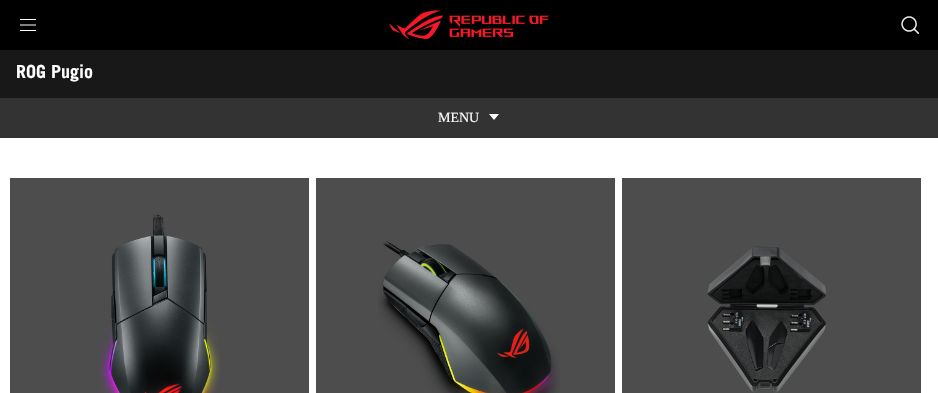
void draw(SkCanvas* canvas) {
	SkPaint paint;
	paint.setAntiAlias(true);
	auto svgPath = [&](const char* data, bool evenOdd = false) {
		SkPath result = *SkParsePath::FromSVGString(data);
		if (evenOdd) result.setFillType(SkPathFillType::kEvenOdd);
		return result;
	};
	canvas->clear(0xffffffff);
	paint.setColor(0xff000000);
	canvas->drawRect(SkRect::MakeXYWH(0, 0, 938, 50), paint);
	canvas->drawImageRect(SkImages::DeferredFromEncodedData(SkData::MakeFromFileName("img1.png")), SkRect::MakeXYWH(20, 19, 16, 12), SkSamplingOptions());
	canvas->drawImageRect(SkImages::DeferredFromEncodedData(SkData::MakeFromFileName("img2.png")), SkRect::MakeXYWH(389, 10, 160, 30), SkSamplingOptions());
	canvas->drawImageRect(SkImages::DeferredFromEncodedData(SkData::MakeFromFileName("img3.png")), SkRect::MakeXYWH(901, 16, 19, 19), SkSamplingOptions());
	paint.setColor(0xff181818);
	canvas->drawRect(SkRect::MakeXYWH(0, 50, 938, 48), paint);
	SkFont f1(fontMgr->matchFamilyStyle("Trade Gothic", SkFontStyle::Bold()), 18);
	f1.setSubpixel(true);
	paint.setColor(0xffffffff);
	canvas->drawString("ROG Pugio", 16, 78, f1, paint);
	paint.setColor(0xff333333);
	canvas->drawRect(SkRect::MakeXYWH(0, 98, 938, 40), paint);
	SkFont f2(fontMgr->matchFamilyStyle("Liberation Serif", SkFontStyle::Normal()), 14);
	f2.setSubpixel(true);
	paint.setColor(0xffffffff);
	canvas->drawString("MENU", 438, 122, f2, paint);
	canvas->drawPath(svgPath("M489 114L494 120L499 114Z"), paint);
	paint.setColor(0xff4d4d4d);
	canvas->drawRect(SkRect::MakeXYWH(10, 178, 299, 215), paint);
	canvas->drawImageRect(SkImages::DeferredFromEncodedData(SkData::MakeFromFileName("img4.png")), SkRect::MakeXYWH(99, 214, 121, 179), SkSamplingOptions());
	canvas->drawRect(SkRect::MakeXYWH(316, 178, 299, 215), paint);
	canvas->drawImageRect(SkImages::DeferredFromEncodedData(SkData::MakeFromFileName("img5.png")), SkRect::MakeXYWH(378, 241, 182, 152), SkSamplingOptions());
	canvas->drawRect(SkRect::MakeXYWH(622, 178, 299, 215), paint);
	canvas->drawImageRect(SkImages::DeferredFromEncodedData(SkData::MakeFromFileName("img6.png")), SkRect::MakeXYWH(707, 246, 119, 147), SkSamplingOptions());
}
